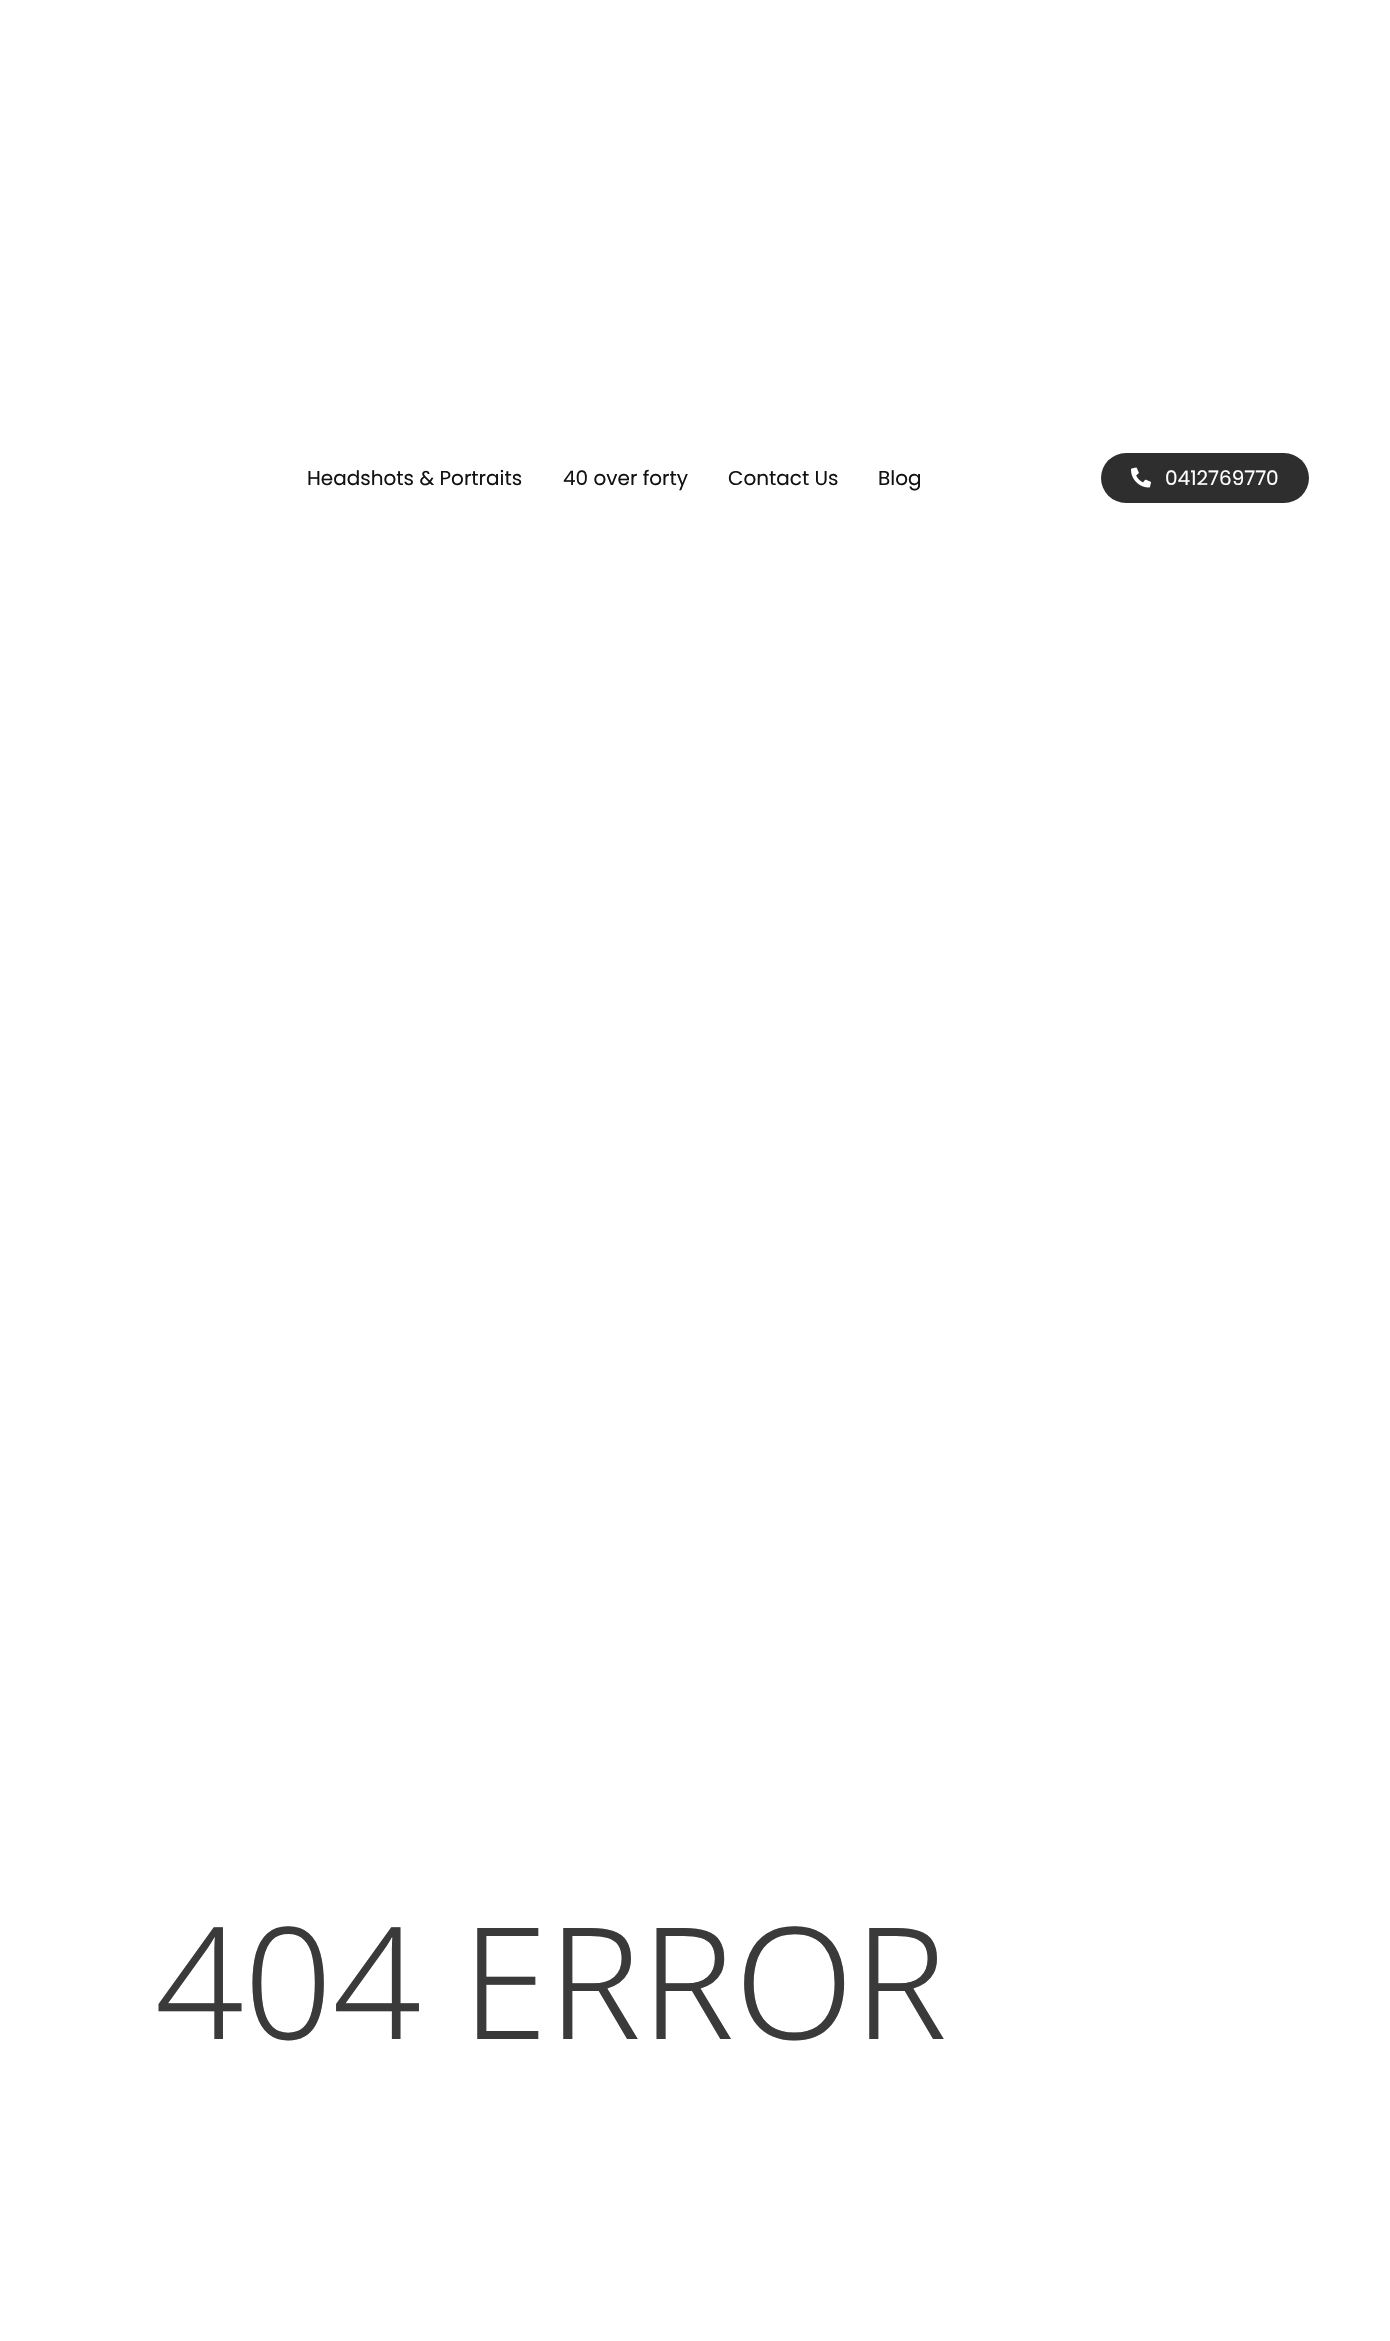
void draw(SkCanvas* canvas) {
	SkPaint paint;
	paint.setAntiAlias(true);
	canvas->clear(0xffffffff);
	SkFont f1(fontMgr->matchFamilyStyle("Poppins", SkFontStyle::Normal()), 20);
	f1.setSubpixel(true);
	paint.setColor(0xff121212);
	canvas->drawString("Headshots & Portraits", 307, 485, f1, paint);
	canvas->drawString("40 over forty", 563, 485, f1, paint);
	canvas->drawString("Contact Us", 728, 485, f1, paint);
	canvas->drawString("Blog", 878, 485, f1, paint);
	paint.setColor(0xff2e2e2e);
	canvas->drawRoundRect(SkRect::MakeXYWH(1101, 453, 208, 50), 25, 25, paint);
	canvas->drawImageRect(SkImages::DeferredFromEncodedData(SkData::MakeFromFileName("img1.png")), SkRect::MakeXYWH(1131, 467, 20, 21), SkSamplingOptions());
	paint.setColor(0xffffffff);
	canvas->drawString("0412769770", 1165, 485, f1, paint);
	SkFont f2(fontMgr->matchFamilyStyle("Noto Sans", SkFontStyle(300, SkFontStyle::kNormal_Width, SkFontStyle::kUpright_Slant)), 155.5);
	f2.setSubpixel(true);
	paint.setColor(0xff3a3a3a);
	canvas->drawString("404 ERROR", 155, 2039, f2, paint);
}
